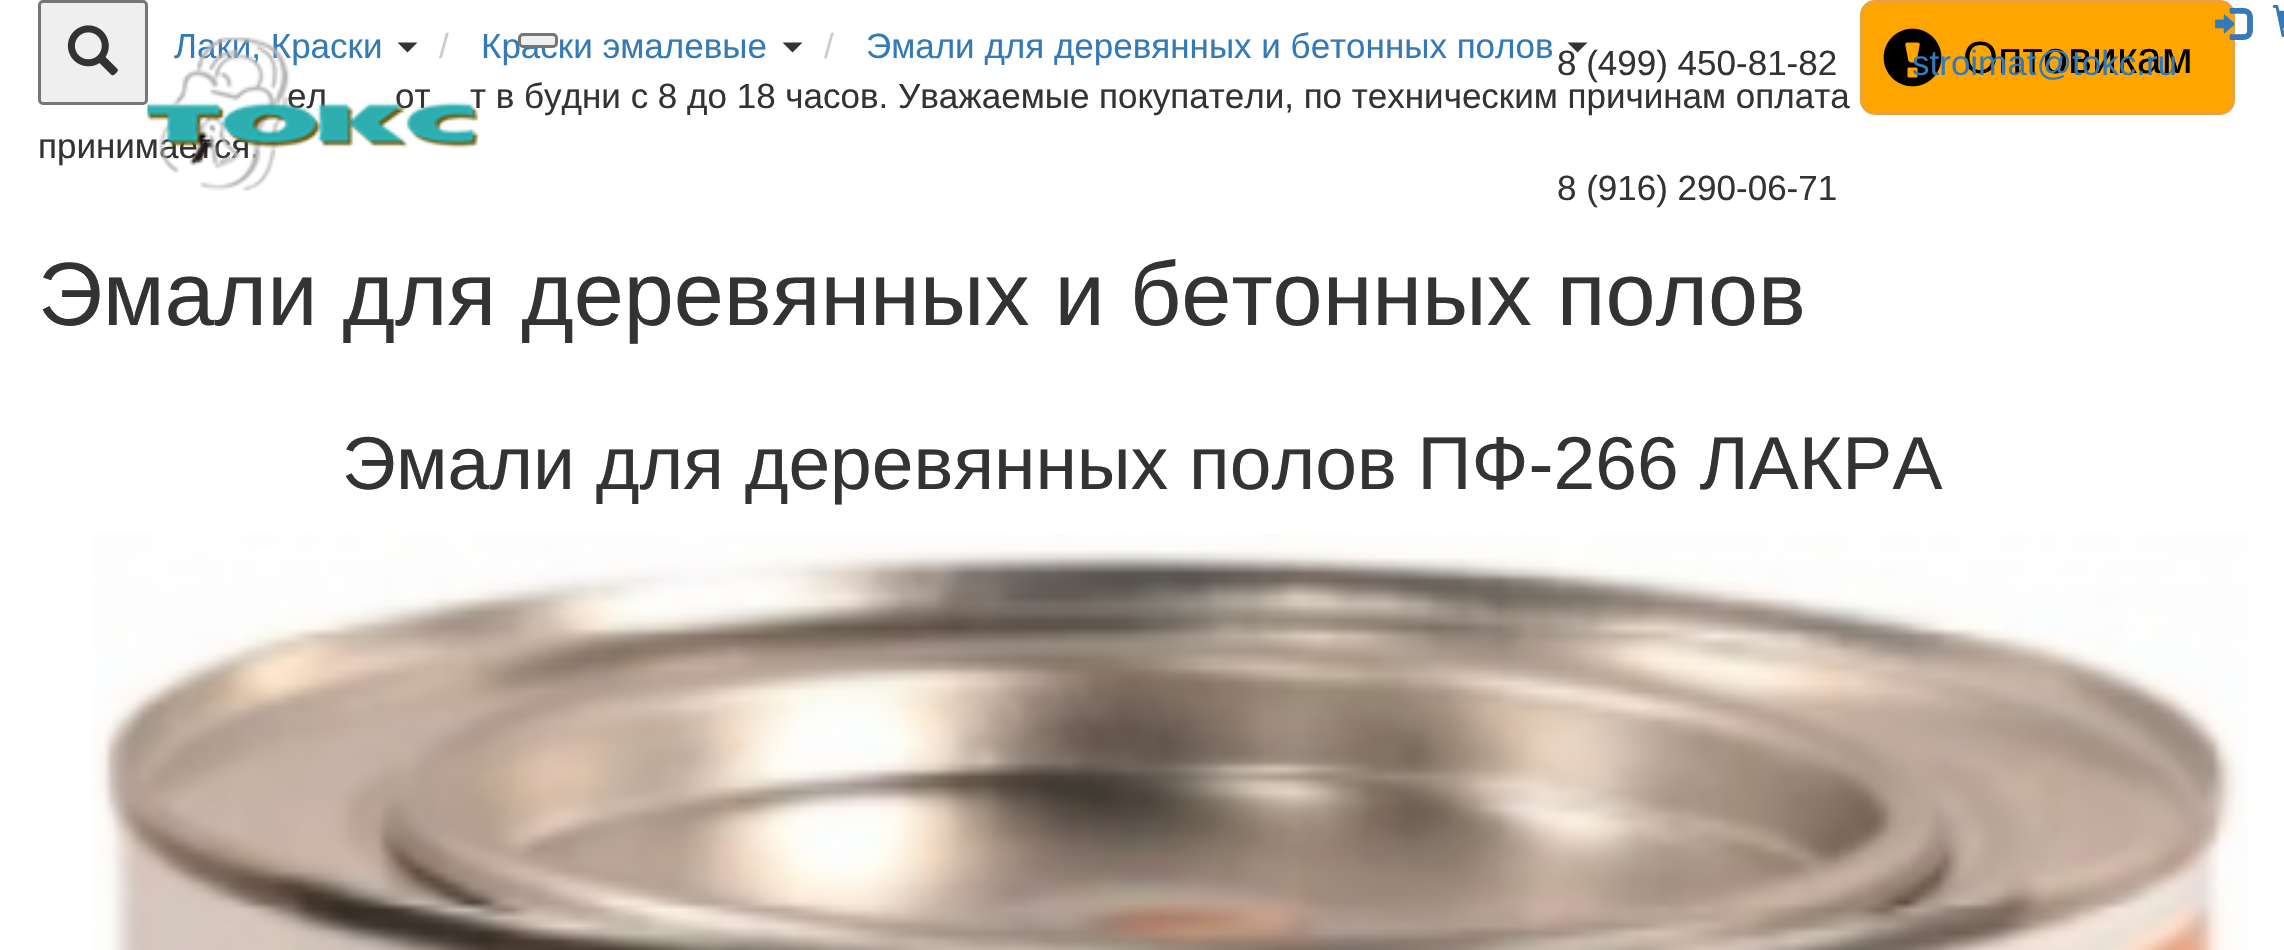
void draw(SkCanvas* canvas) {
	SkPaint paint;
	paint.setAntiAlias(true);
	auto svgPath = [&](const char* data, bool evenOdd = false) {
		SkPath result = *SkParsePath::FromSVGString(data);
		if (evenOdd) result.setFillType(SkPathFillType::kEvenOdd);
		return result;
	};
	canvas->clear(0xffffffff);
	SkFont f1(fontMgr->matchFamilyStyle("Liberation Sans", SkFontStyle::Normal()), 35);
	f1.setSubpixel(true);
	paint.setColor(0xff337ab7);
	canvas->drawString("Лаки, Краски", 174, 58, f1, paint);
	paint.setColor(0xff333333);
	canvas->drawPath(svgPath("M397.5 42.5H417.5L407.5 52.5Z"), paint);
	paint.setColor(0xffcccccc);
	canvas->drawString("/", 439, 58, f1, paint);
	paint.setColor(0xff337ab7);
	canvas->drawString("Краски эмалевые", 481, 58, f1, paint);
	paint.setColor(0xff333333);
	canvas->drawPath(svgPath("M782.5 42.5H802.5L792.5 52.5Z"), paint);
	paint.setColor(0xffcccccc);
	canvas->drawString("/", 824, 58, f1, paint);
	paint.setColor(0xff337ab7);
	canvas->drawString("Эмали для деревянных и бетонных полов", 866, 58, f1, paint);
	paint.setColor(0xff333333);
	canvas->drawPath(svgPath("M1567.5 42.5H1587.5L1577.5 52.5Z"), paint);
	paint.setColor(0xffffa500);
	canvas->drawRoundRect(SkRect::MakeXYWH(1861.5, 1.5, 372, 112), 13.5, 13.5, paint);
	paint.setStroke(true);
	paint.setStrokeWidth(3);
	paint.setColor(0xffeea236);
	canvas->drawRoundRect(SkRect::MakeXYWH(1861.5, 1.5, 372, 112), 13.5, 13.5, paint);
	canvas->drawImageRect(SkImages::DeferredFromEncodedData(SkData::MakeFromFileName("img1.png")), SkRect::MakeXYWH(1883, 28, 59, 59), SkSamplingOptions());
	SkFont f2(fontMgr->matchFamilyStyle("Liberation Sans", SkFontStyle::Normal()), 45);
	f2.setSubpixel(true);
	paint.setStroke(false);
	paint.setColor(0xff000000);
	canvas->drawString("Оптовикам", 1963, 73, f2, paint);
	SkFont f3(fontMgr->matchFamilyStyle("Liberation Sans", SkFontStyle::Normal()), 90);
	f3.setSubpixel(true);
	paint.setColor(0xff333333);
	canvas->drawString("Эмали для деревянных и бетонных полов", 38, 325, f3, paint);
	SkFont f4(fontMgr->matchFamilyStyle("Liberation Sans", SkFontStyle::Normal()), 75);
	f4.setSubpixel(true);
	canvas->drawString("Эмали для деревянных полов ПФ-266 ЛАКРА", 342, 489, f4, paint);
	canvas->drawImageRect(SkImages::DeferredFromEncodedData(SkData::MakeFromFileName("img2.png")), SkRect::MakeXYWH(92, 534, 2156, 416), SkSamplingOptions());
	canvas->drawString("ел", 287, 108, f1, paint);
	canvas->drawString("от", 395, 108, f1, paint);
	canvas->drawString("т в будни с 8 до 18 часов. Уважаемые покупатели, по техническим причинам оплата", 470, 108, f1, paint);
	canvas->drawString("принимается.", 38, 158, f1, paint);
	canvas->drawImageRect(SkImages::DeferredFromEncodedData(SkData::MakeFromFileName("img4.png")), SkRect::MakeXYWH(147, 37, 332, 154), SkSamplingOptions());
	paint.setColor(0xffefefef);
	canvas->drawRoundRect(SkRect::MakeXYWH(39.5, 1.5, 107, 102), 3.5, 3.5, paint);
	paint.setStroke(true);
	paint.setColor(0xff767676);
	canvas->drawRoundRect(SkRect::MakeXYWH(39.5, 1.5, 107, 102), 3.5, 3.5, paint);
	canvas->drawImageRect(SkImages::DeferredFromEncodedData(SkData::MakeFromFileName("img3.png")), SkRect::MakeXYWH(67, 25, 51, 51), SkSamplingOptions());
	paint.setStroke(false);
	paint.setColor(0xffefefef);
	canvas->drawRoundRect(SkRect::MakeXYWH(519.5, 34.5, 37, 12), 3.5, 3.5, paint);
	paint.setStroke(true);
	paint.setColor(0xff767676);
	canvas->drawRoundRect(SkRect::MakeXYWH(519.5, 34.5, 37, 12), 3.5, 3.5, paint);
	canvas->drawImageRect(SkImages::DeferredFromEncodedData(SkData::MakeFromFileName("img5.png")), SkRect::MakeXYWH(2215, 7, 38, 33), SkSamplingOptions());
	canvas->drawImageRect(SkImages::DeferredFromEncodedData(SkData::MakeFromFileName("img6.png")), SkRect::MakeXYWH(2272, 5, 12, 33), SkSamplingOptions());
	paint.setStroke(false);
	paint.setColor(0xff333333);
	canvas->drawString("8 (499) 450-81-82", 1557, 75, f1, paint);
	canvas->drawString("8 (916) 290-06-71", 1557, 200, f1, paint);
	paint.setColor(0xff337ab7);
	canvas->drawString("stroimat@tokc.ru", 1912, 75, f1, paint);
}
